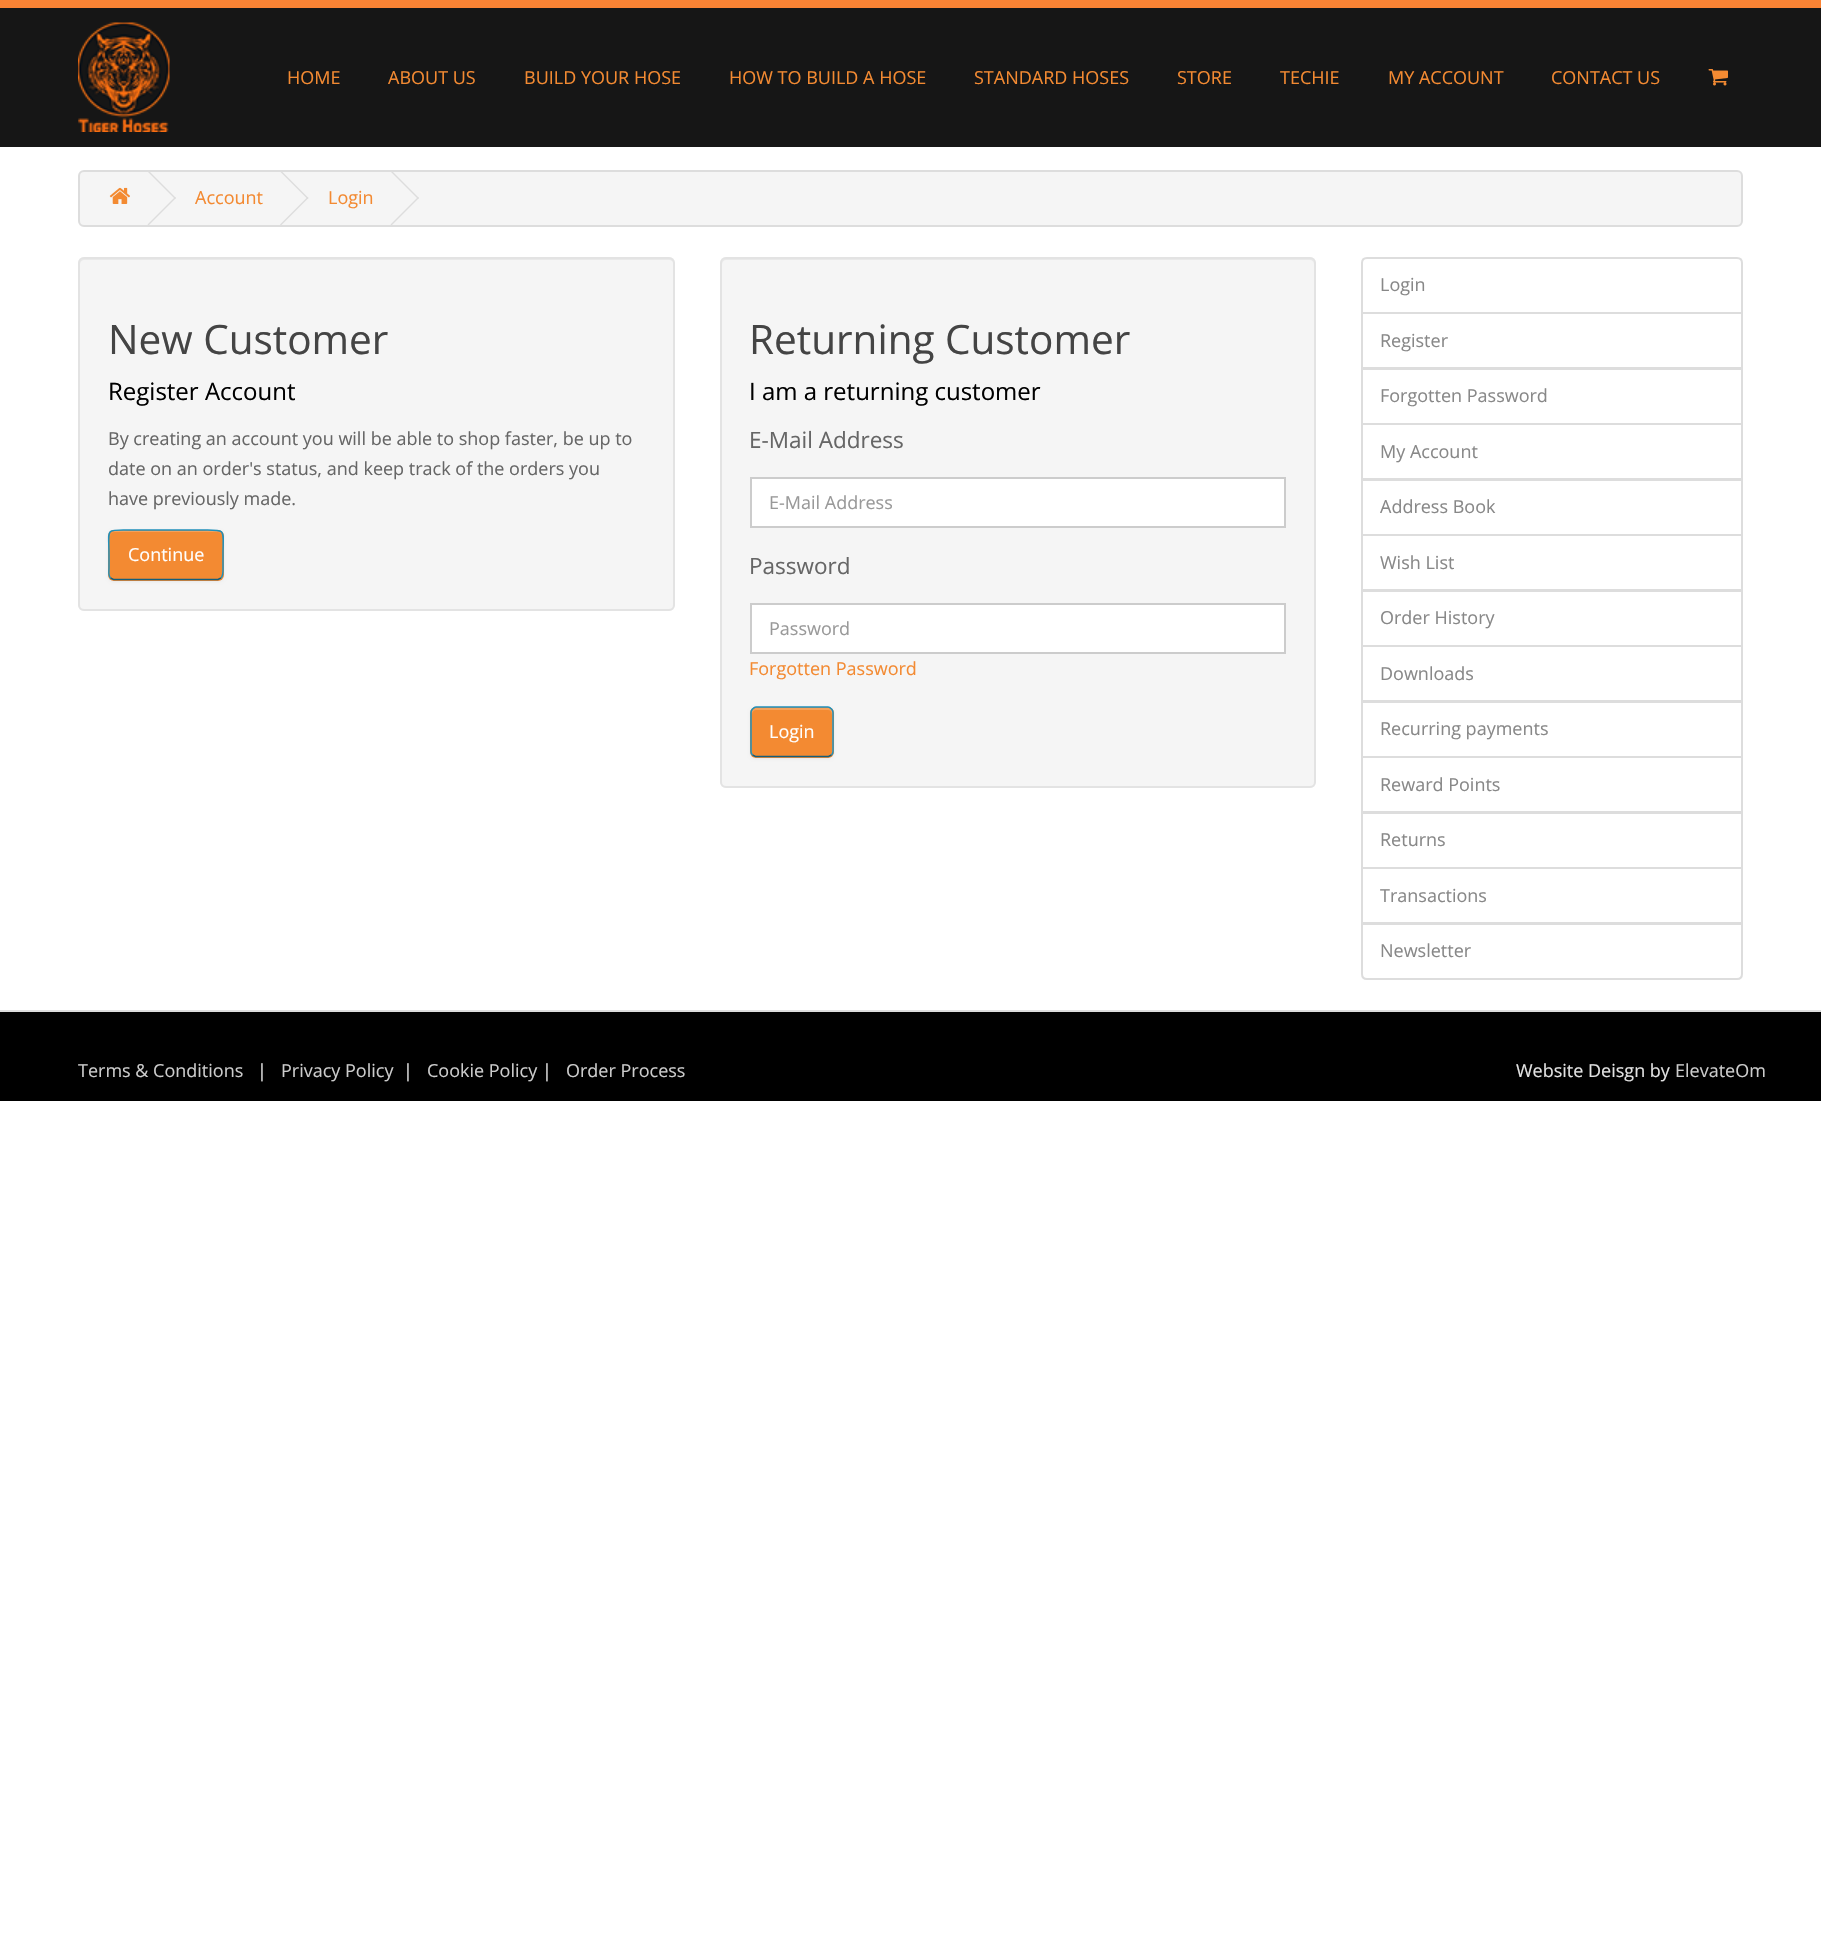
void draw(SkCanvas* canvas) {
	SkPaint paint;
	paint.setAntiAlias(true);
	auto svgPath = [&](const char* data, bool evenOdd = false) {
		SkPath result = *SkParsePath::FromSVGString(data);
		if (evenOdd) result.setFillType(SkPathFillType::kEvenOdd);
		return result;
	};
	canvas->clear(0xffffffff);
	paint.setColor(0xff161616);
	canvas->drawRect(SkRect::MakeXYWH(0, 8, 1821, 139), paint);
	paint.setColor(0xfffa8334);
	canvas->drawRect(SkRect::MakeXYWH(0, 0, 1821, 8), paint);
	canvas->drawImageRect(SkImages::DeferredFromEncodedData(SkData::MakeFromFileName("img1.png")), SkRect::MakeXYWH(78, 22, 92, 110), SkSamplingOptions());
	SkFont f1(fontMgr->matchFamilyStyle("Open Sans", SkFontStyle::Normal()), 18);
	f1.setSubpixel(true);
	paint.setColor(0xfff38a32);
	canvas->drawString("HOME", 287, 84, f1, paint);
	canvas->drawString("ABOUT US", 388, 84, f1, paint);
	canvas->drawString("BUILD YOUR HOSE", 524, 84, f1, paint);
	canvas->drawString("HOW TO BUILD A HOSE", 729, 84, f1, paint);
	canvas->drawString("STANDARD HOSES", 974, 84, f1, paint);
	canvas->drawString("STORE", 1177, 84, f1, paint);
	canvas->drawString("TECHIE", 1280, 84, f1, paint);
	canvas->drawString("MY ACCOUNT", 1388, 84, f1, paint);
	canvas->drawString("CONTACT US", 1551, 84, f1, paint);
	canvas->drawImageRect(SkImages::DeferredFromEncodedData(SkData::MakeFromFileName("img2.png")), SkRect::MakeXYWH(1708, 69, 20, 17), SkSamplingOptions());
	paint.setColor(0xfff5f5f5);
	canvas->drawRoundRect(SkRect::MakeXYWH(79, 171, 1663, 55), 5, 5, paint);
	paint.setStroke(true);
	paint.setStrokeWidth(2);
	paint.setColor(0xffdddddd);
	canvas->drawRoundRect(SkRect::MakeXYWH(79, 171, 1663, 55), 5, 5, paint);
	canvas->drawImageRect(SkImages::DeferredFromEncodedData(SkData::MakeFromFileName("img3.png")), SkRect::MakeXYWH(109, 187, 21, 17), SkSamplingOptions());
	paint.setStroke(false);
	canvas->drawPath(svgPath("M147.5 171.5L148.5 170.5L176 198L175 199Z"), paint);
	canvas->drawPath(svgPath("M147.5 224.5L175 197L176 198L148.5 225.5Z"), paint);
	paint.setColor(0xfff38a32);
	canvas->drawString("Account", 195, 204, f1, paint);
	paint.setColor(0xffdddddd);
	canvas->drawPath(svgPath("M280 171.5L281 170.5L308.5 198L307.5 199Z"), paint);
	canvas->drawPath(svgPath("M280 224.5L307.5 197L308.5 198L281 225.5Z"), paint);
	paint.setColor(0xfff38a32);
	canvas->drawString("Login", 328, 204, f1, paint);
	paint.setColor(0xffdddddd);
	canvas->drawPath(svgPath("M390.5 171.5L391.5 170.5L419 198L418 199Z"), paint);
	canvas->drawPath(svgPath("M390.5 224.5L418 197L419 198L391.5 225.5Z"), paint);
	paint.setColor(0xfff5f5f5);
	canvas->drawRoundRect(SkRect::MakeXYWH(78, 257, 597, 354), 6, 6, paint);
	paint.setColor(0xffe9e9e9);
	canvas->drawPath(svgPath("M84 260H669C671 260 674 262 674 264V263C674 260 672 258 669 258H85C82 258 80 260 80 263V264C80 262 82 260 84 260Z"), paint);
	paint.setStroke(true);
	paint.setColor(0xffe3e3e3);
	canvas->drawRoundRect(SkRect::MakeXYWH(79, 258, 595, 352), 5, 5, paint);
	SkFont f2(fontMgr->matchFamilyStyle("Open Sans", SkFontStyle::Normal()), 40.5);
	f2.setSubpixel(true);
	paint.setStroke(false);
	paint.setColor(0xff444444);
	canvas->drawString("New Customer", 108, 354, f2, paint);
	SkFont f3(fontMgr->matchFamilyStyle("Open Sans", SkFontStyle::Normal()), 24);
	f3.setSubpixel(true);
	paint.setColor(0xff000000);
	canvas->drawString("Register Account", 108, 400, f3, paint);
	paint.setColor(0xff666666);
	canvas->drawString("By creating an account you will be able to shop faster, be up to", 108, 445, f1, paint);
	canvas->drawString("date on an order's status, and keep track of the orders you", 108, 475, f1, paint);
	canvas->drawString("have previously made.", 108, 505, f1, paint);
	paint.setColor(0x0d000000);
	paint.setMaskFilter(SkMaskFilter::MakeBlur(kNormal_SkBlurStyle, 1.5));
	canvas->drawRoundRect(SkRect::MakeXYWH(108, 531, 116, 51), 6, 6, paint);
	paint.setMaskFilter(nullptr);
	paint.setColor(0xfff38a32);
	canvas->drawRoundRect(SkRect::MakeXYWH(108, 530, 116, 51), 6, 6, paint);
	paint.setColor(0xfff5a15b);
	canvas->drawPath(svgPath("M114 532H218C220 532 222 535 222 537C222 527 205 531 200 531H132C127 531 110 527 110 537C110 535 112 532 114 532Z"), paint);
	paint.setStroke(true);
	paint.setStrokeWidth(1.5);
	paint.setColor(0xff145e7a);
	canvas->drawPath(svgPath("M221 578L218 579.5H113.5L110.5 578"), paint);
	paint.setColor(0xff1f90bb);
	canvas->drawPath(svgPath("M110.5 578C108 575.5 109 571 109 568V555C109 527.5 104 530 131 530H200C227.5 530 223 527.5 223 555V568C223 571 223.5 575.5 221 578"), paint);
	paint.setStroke(false);
	paint.setColor(0xffffffff);
	canvas->drawString("Continue", 128, 561, f1, paint);
	paint.setColor(0xfff5f5f5);
	canvas->drawRoundRect(SkRect::MakeXYWH(720, 257, 596, 531), 6, 6, paint);
	paint.setColor(0xffe9e9e9);
	canvas->drawPath(svgPath("M726 260H1310C1312 260 1314 262 1314 264V263C1314 260 1312 258 1309 258H727C724 258 722 260 722 263V264C722 262 724 260 726 260Z"), paint);
	paint.setStroke(true);
	paint.setStrokeWidth(2);
	paint.setColor(0xffe3e3e3);
	canvas->drawRoundRect(SkRect::MakeXYWH(721, 258, 594, 529), 5, 5, paint);
	paint.setStroke(false);
	paint.setColor(0xff444444);
	canvas->drawString("Returning Customer", 749, 354, f2, paint);
	paint.setColor(0xff000000);
	canvas->drawString("I am a returning customer", 749, 400, f3, paint);
	SkFont f4(fontMgr->matchFamilyStyle("Open Sans", SkFontStyle::Normal()), 22.5);
	f4.setSubpixel(true);
	paint.setColor(0xff666666);
	canvas->drawString("E-Mail Address", 749, 448, f4, paint);
	paint.setColor(0xffffffff);
	canvas->drawRect(SkRect::MakeXYWH(751, 478, 534, 49), paint);
	paint.setStroke(true);
	paint.setColor(0xffcccccc);
	canvas->drawRect(SkRect::MakeXYWH(751, 478, 534, 49), paint);
	paint.setStroke(false);
	paint.setColor(0xff999999);
	canvas->drawString("E-Mail Address", 769, 509, f1, paint);
	paint.setColor(0xff666666);
	canvas->drawString("Password", 749, 574, f4, paint);
	paint.setColor(0xffffffff);
	canvas->drawRect(SkRect::MakeXYWH(751, 604, 534, 49), paint);
	paint.setStroke(true);
	paint.setColor(0xffcccccc);
	canvas->drawRect(SkRect::MakeXYWH(751, 604, 534, 49), paint);
	paint.setStroke(false);
	paint.setColor(0xff999999);
	canvas->drawString("Password", 769, 635, f1, paint);
	paint.setColor(0xfff38a32);
	canvas->drawString("Forgotten Password", 749, 675, f1, paint);
	paint.setColor(0x0d000000);
	paint.setMaskFilter(SkMaskFilter::MakeBlur(kNormal_SkBlurStyle, 1.5));
	canvas->drawRoundRect(SkRect::MakeXYWH(750, 708, 84, 51), 6, 6, paint);
	paint.setMaskFilter(nullptr);
	paint.setColor(0xfff38a32);
	canvas->drawRoundRect(SkRect::MakeXYWH(750, 707, 84, 51), 6, 6, paint);
	paint.setColor(0xfff5a15b);
	canvas->drawPath(svgPath("M756 710H828C833 710 832 718 832 720V754C833 753 833 752 833 751V713C833 710 831 708 828 708H757C754 708 752 710 752 713V714C752 712 754 710 756 710Z"), paint);
	paint.setStroke(true);
	paint.setStrokeWidth(1.5);
	paint.setColor(0xff145e7a);
	canvas->drawPath(svgPath("M831.5 755L828.5 756.5H755.5L752.5 755"), paint);
	paint.setColor(0xff1f90bb);
	canvas->drawPath(svgPath("M752.5 755C751.5 754 751 753 751 751.5V712.5C751 711 751.5 710 752.5 709C753.5 708 754.5 707 756 707H828C829.5 707 830.5 708 831.5 709C832.5 710 833 711 833 712.5V751.5C833 753 832.5 754 831.5 755"), paint);
	paint.setStroke(false);
	paint.setColor(0xffffffff);
	canvas->drawString("Login", 769, 738, f1, paint);
	paint.setStroke(true);
	paint.setStrokeWidth(2);
	paint.setColor(0xffdddddd);
	canvas->drawPath(svgPath("M1367 258H1737C1740 258 1742 260 1742 263V313H1362V263C1362 260 1364 258 1367 258Z"), paint);
	paint.setStroke(false);
	paint.setColor(0xff888888);
	canvas->drawString("Login", 1380, 291, f1, paint);
	paint.setStroke(true);
	paint.setColor(0xffdddddd);
	canvas->drawRect(SkRect::MakeXYWH(1362, 313, 380, 55), paint);
	paint.setStroke(false);
	paint.setColor(0xff888888);
	canvas->drawString("Register", 1380, 347, f1, paint);
	paint.setStroke(true);
	paint.setColor(0xffdddddd);
	canvas->drawRect(SkRect::MakeXYWH(1362, 369, 380, 55), paint);
	paint.setStroke(false);
	paint.setColor(0xff888888);
	canvas->drawString("Forgotten Password", 1380, 402, f1, paint);
	paint.setStroke(true);
	paint.setColor(0xffdddddd);
	canvas->drawRect(SkRect::MakeXYWH(1362, 424, 380, 55), paint);
	paint.setStroke(false);
	paint.setColor(0xff888888);
	canvas->drawString("My Account", 1380, 458, f1, paint);
	paint.setStroke(true);
	paint.setColor(0xffdddddd);
	canvas->drawRect(SkRect::MakeXYWH(1362, 480, 380, 55), paint);
	paint.setStroke(false);
	paint.setColor(0xff888888);
	canvas->drawString("Address Book", 1380, 513, f1, paint);
	paint.setStroke(true);
	paint.setColor(0xffdddddd);
	canvas->drawRect(SkRect::MakeXYWH(1362, 535, 380, 55), paint);
	paint.setStroke(false);
	paint.setColor(0xff888888);
	canvas->drawString("Wish List", 1380, 569, f1, paint);
	paint.setStroke(true);
	paint.setColor(0xffdddddd);
	canvas->drawRect(SkRect::MakeXYWH(1362, 591, 380, 55), paint);
	paint.setStroke(false);
	paint.setColor(0xff888888);
	canvas->drawString("Order History", 1380, 624, f1, paint);
	paint.setStroke(true);
	paint.setColor(0xffdddddd);
	canvas->drawRect(SkRect::MakeXYWH(1362, 646, 380, 55), paint);
	paint.setStroke(false);
	paint.setColor(0xff888888);
	canvas->drawString("Downloads", 1380, 680, f1, paint);
	paint.setStroke(true);
	paint.setColor(0xffdddddd);
	canvas->drawRect(SkRect::MakeXYWH(1362, 702, 380, 55), paint);
	paint.setStroke(false);
	paint.setColor(0xff888888);
	canvas->drawString("Recurring payments", 1380, 735, f1, paint);
	paint.setStroke(true);
	paint.setColor(0xffdddddd);
	canvas->drawRect(SkRect::MakeXYWH(1362, 757, 380, 55), paint);
	paint.setStroke(false);
	paint.setColor(0xff888888);
	canvas->drawString("Reward Points", 1380, 791, f1, paint);
	paint.setStroke(true);
	paint.setColor(0xffdddddd);
	canvas->drawRect(SkRect::MakeXYWH(1362, 813, 380, 55), paint);
	paint.setStroke(false);
	paint.setColor(0xff888888);
	canvas->drawString("Returns", 1380, 846, f1, paint);
	paint.setStroke(true);
	paint.setColor(0xffdddddd);
	canvas->drawRect(SkRect::MakeXYWH(1362, 868, 380, 55), paint);
	paint.setStroke(false);
	paint.setColor(0xff888888);
	canvas->drawString("Transactions", 1380, 902, f1, paint);
	paint.setColor(0xffffffff);
	canvas->drawPath(svgPath("M1362 924H1742V974C1742 977 1740 979 1737 979H1367C1364 979 1362 977 1362 974Z"), paint);
	paint.setStroke(true);
	paint.setColor(0xffdddddd);
	canvas->drawPath(svgPath("M1362 924H1742V974C1742 977 1740 979 1737 979H1367C1364 979 1362 977 1362 974Z"), paint);
	paint.setStroke(false);
	paint.setColor(0xff888888);
	canvas->drawString("Newsletter", 1380, 957, f1, paint);
	paint.setColor(0xff000000);
	canvas->drawRect(SkRect::MakeXYWH(0, 1012, 1821, 89), paint);
	paint.setColor(0xffdddddd);
	canvas->drawRect(SkRect::MakeXYWH(0, 1010, 1821, 2), paint);
	paint.setColor(0xffcccccc);
	canvas->drawString("Terms & Conditions", 78, 1077, f1, paint);
	paint.setColor(0xffe2e2e2);
	canvas->drawString("|", 257, 1077, f1, paint);
	paint.setColor(0xffcccccc);
	canvas->drawString("Privacy Policy", 281, 1077, f1, paint);
	paint.setColor(0xffe2e2e2);
	canvas->drawString("|", 403, 1077, f1, paint);
	paint.setColor(0xffcccccc);
	canvas->drawString("Cookie Policy", 427, 1077, f1, paint);
	paint.setColor(0xffe2e2e2);
	canvas->drawString("|", 542, 1077, f1, paint);
	paint.setColor(0xffcccccc);
	canvas->drawString("Order Process", 566, 1077, f1, paint);
	paint.setColor(0xffe2e2e2);
	canvas->drawString("Website Deisgn by", 1516, 1077, f1, paint);
	paint.setColor(0xffcccccc);
	canvas->drawString("ElevateOm", 1675, 1077, f1, paint);
}
